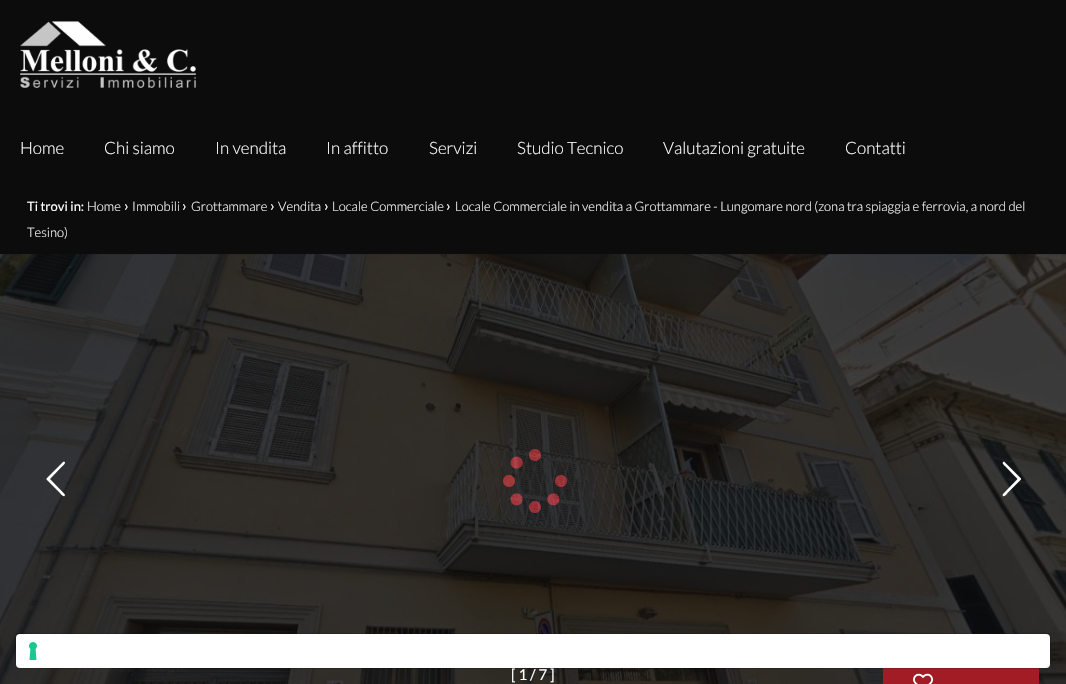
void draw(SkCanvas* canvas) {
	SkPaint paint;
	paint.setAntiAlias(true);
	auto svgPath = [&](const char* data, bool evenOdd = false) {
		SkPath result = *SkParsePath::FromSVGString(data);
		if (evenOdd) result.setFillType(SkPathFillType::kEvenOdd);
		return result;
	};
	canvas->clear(0xff0d0c0c);
	canvas->drawImageRect(SkImages::DeferredFromEncodedData(SkData::MakeFromFileName("img1.png")), SkRect::MakeXYWH(20, 21, 176, 67), SkSamplingOptions());
	SkFont f1(fontMgr->matchFamilyStyle("Lato", SkFontStyle(300, SkFontStyle::kNormal_Width, SkFontStyle::kUpright_Slant)), 17);
	f1.setSubpixel(true);
	paint.setColor(0xffffffff);
	canvas->drawString("Home", 20, 154, f1, paint);
	canvas->drawString("Chi siamo", 104, 154, f1, paint);
	canvas->drawString("In vendita", 215, 154, f1, paint);
	canvas->drawString("In affitto", 326, 154, f1, paint);
	canvas->drawString("Servizi", 429, 154, f1, paint);
	canvas->drawString("Studio Tecnico", 517, 154, f1, paint);
	canvas->drawString("Valutazioni gratuite", 663, 154, f1, paint);
	canvas->drawString("Contatti", 845, 154, f1, paint);
	SkFont f2(fontMgr->matchFamilyStyle("Lato", SkFontStyle::Normal()), 13);
	f2.setSubpixel(true);
	canvas->drawString("Ti trovi in:", 27, 211, f2, paint);
	SkFont f3(fontMgr->matchFamilyStyle("Lato", SkFontStyle(300, SkFontStyle::kNormal_Width, SkFontStyle::kUpright_Slant)), 13);
	f3.setSubpixel(true);
	canvas->drawString("Home", 87, 211, f3, paint);
	SkFont f4(fontMgr->matchFamilyStyle("Lato", SkFontStyle::Normal()), 15);
	f4.setSubpixel(true);
	canvas->drawString("›", 124, 211, f4, paint);
	canvas->drawString("Immobili", 132, 211, f3, paint);
	canvas->drawString("›", 182, 211, f4, paint);
	canvas->drawString("Grottammare", 191, 211, f3, paint);
	canvas->drawString("›", 270, 211, f4, paint);
	canvas->drawString("Vendita", 278, 211, f3, paint);
	canvas->drawString("›", 324, 211, f4, paint);
	canvas->drawString("Locale Commerciale", 332, 211, f3, paint);
	canvas->drawString("›", 446, 211, f4, paint);
	canvas->drawString("Locale Commerciale in vendita a Grottammare - Lungomare nord (zona tra spiaggia e ferrovia, a nord del", 455, 211, f3, paint);
	canvas->drawString("Tesino)", 27, 237, f3, paint);
	canvas->drawImageRect(SkImages::DeferredFromEncodedData(SkData::MakeFromFileName("img2.png")), SkRect::MakeXYWH(503, 449, 64, 64), SkSamplingOptions());
	canvas->drawImageRect(SkImages::DeferredFromEncodedData(SkData::MakeFromFileName("img3.png")), SkRect::MakeXYWH(0, 254, 1066, 430), SkSamplingOptions());
	canvas->drawPath(svgPath("M64.5 494L65 495C64 498.5 60.5 493.5 60 493L46.5 479.5V478.5L63 462L64 461.5C67 462.5 62.5 466 62 466.5L50 479Z"), paint);
	canvas->drawPath(svgPath("M1003 494L1017.5 479L1005.5 466.5C1005 466 1000.5 462.5 1004 461.5L1004.5 462L1021 478.5V479.5L1007.5 493C1007.5 493.5 1003.5 498.5 1002.5 495Z"), paint);
	canvas->drawString("[ 1 / 7 ]", 511, 680, f4, paint);
	paint.setColor(0xffa11c24);
	canvas->drawRect(SkRect::MakeXYWH(883, 668, 156, 16), paint);
	canvas->drawImageRect(SkImages::DeferredFromEncodedData(SkData::MakeFromFileName("img4.png")), SkRect::MakeXYWH(913, 673, 20, 11), SkSamplingOptions());
	paint.setStroke(true);
	paint.setStrokeWidth(1);
	paint.setColor(0x26000000);
	canvas->drawRoundRect(SkRect::MakeXYWH(15.5, 633.5, 1035, 35), 4.5, 4.5, paint);
	paint.setStroke(false);
	paint.setColor(0xffffffff);
	canvas->drawRoundRect(SkRect::MakeXYWH(16, 634, 1034, 34), 4, 4, paint);
	canvas->drawImageRect(SkImages::DeferredFromEncodedData(SkData::MakeFromFileName("img5.png")), SkRect::MakeXYWH(29, 642, 8, 18), SkSamplingOptions());
}
